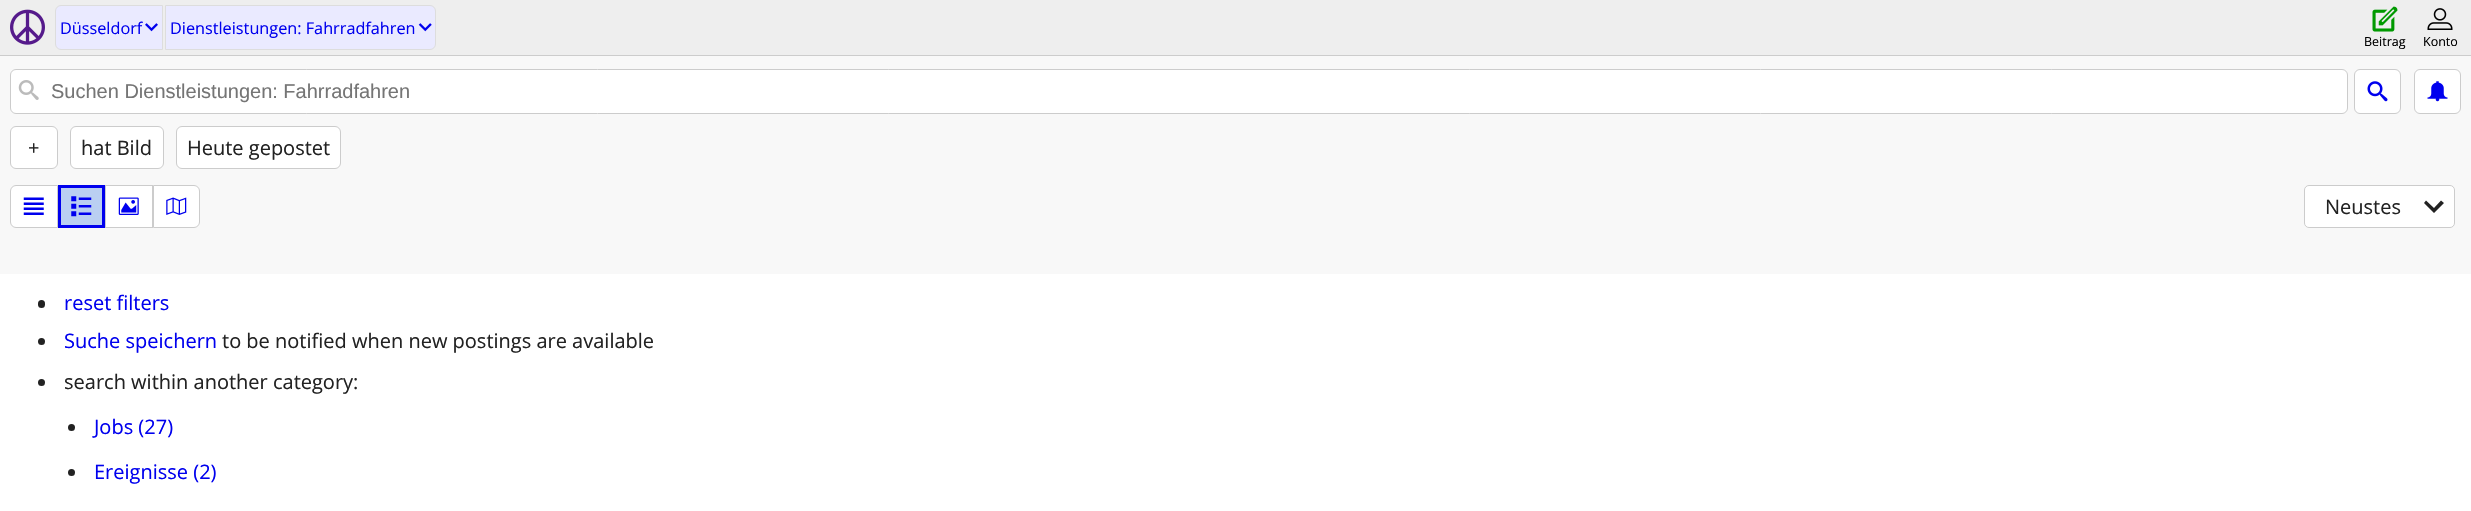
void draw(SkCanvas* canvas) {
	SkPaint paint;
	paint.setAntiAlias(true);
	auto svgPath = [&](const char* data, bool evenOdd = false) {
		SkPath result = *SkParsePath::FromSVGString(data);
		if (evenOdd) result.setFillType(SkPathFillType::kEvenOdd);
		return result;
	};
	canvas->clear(0xffffffff);
	paint.setColor(0xffeeeeee);
	canvas->drawRect(SkRect::MakeXYWH(0, 0, 2471, 55), paint);
	paint.setColor(0xffcccccc);
	canvas->drawRect(SkRect::MakeXYWH(0, 55, 2471, 1), paint);
	canvas->drawImageRect(SkImages::DeferredFromEncodedData(SkData::MakeFromFileName("img1.png")), SkRect::MakeXYWH(10, 9, 35, 36), SkSamplingOptions());
	paint.setColor(0xffeaeaff);
	canvas->drawPath(svgPath("M61 5.5H162.5V49.5H61C58 49.5 55.5 47 55.5 44V11C55.5 8 58 5.5 61 5.5Z"), paint);
	paint.setStroke(true);
	paint.setStrokeWidth(1);
	paint.setColor(0xffdddddd);
	canvas->drawPath(svgPath("M61 5.5H162.5V49.5H61C58 49.5 55.5 47 55.5 44V11C55.5 8 58 5.5 61 5.5Z"), paint);
	SkFont f1(fontMgr->matchFamilyStyle("Open Sans", SkFontStyle::Normal()), 16.25);
	f1.setSubpixel(true);
	paint.setStroke(false);
	paint.setColor(0xff0000ee);
	canvas->drawString("Düsseldorf", 60, 34, f1, paint);
	canvas->drawImageRect(SkImages::DeferredFromEncodedData(SkData::MakeFromFileName("img2.png")), SkRect::MakeXYWH(145, 23, 13, 9), SkSamplingOptions());
	paint.setColor(0xffeaeaff);
	canvas->drawPath(svgPath("M165.5 5.5H430C433 5.5 435.5 8 435.5 11V44C435.5 47 433 49.5 430 49.5H165.5Z"), paint);
	paint.setStroke(true);
	paint.setColor(0xffdddddd);
	canvas->drawPath(svgPath("M165.5 5.5H430C433 5.5 435.5 8 435.5 11V44C435.5 47 433 49.5 430 49.5H165.5Z"), paint);
	paint.setStroke(false);
	paint.setColor(0xff0000ee);
	canvas->drawString("Dienstleistungen: Fahrradfahren", 170, 34, f1, paint);
	canvas->drawImageRect(SkImages::DeferredFromEncodedData(SkData::MakeFromFileName("img3.png")), SkRect::MakeXYWH(418, 23, 14, 9), SkSamplingOptions());
	canvas->drawImageRect(SkImages::DeferredFromEncodedData(SkData::MakeFromFileName("img4.png")), SkRect::MakeXYWH(2372, 6, 26, 26), SkSamplingOptions());
	SkFont f2(fontMgr->matchFamilyStyle("Open Sans", SkFontStyle::Normal()), 12.5);
	f2.setSubpixel(true);
	paint.setColor(0xff000000);
	canvas->drawString("Beitrag", 2364, 46, f2, paint);
	canvas->drawImageRect(SkImages::DeferredFromEncodedData(SkData::MakeFromFileName("img5.png")), SkRect::MakeXYWH(2427, 8, 26, 22), SkSamplingOptions());
	canvas->drawString("Konto", 2423, 46, f2, paint);
	paint.setColor(0xfff8f8f8);
	canvas->drawRect(SkRect::MakeXYWH(0, 56, 2471, 218), paint);
	paint.setColor(0xffffffff);
	canvas->drawRoundRect(SkRect::MakeXYWH(10.5, 69.5, 2337, 44), 5.5, 5.5, paint);
	paint.setStroke(true);
	paint.setColor(0xffcccccc);
	canvas->drawRoundRect(SkRect::MakeXYWH(10.5, 69.5, 2337, 44), 5.5, 5.5, paint);
	canvas->drawImageRect(SkImages::DeferredFromEncodedData(SkData::MakeFromFileName("img6.png")), SkRect::MakeXYWH(18, 80, 21, 20), SkSamplingOptions());
	SkFont f3(fontMgr->matchFamilyStyle("Liberation Sans", SkFontStyle::Normal()), 20);
	f3.setSubpixel(true);
	paint.setStroke(false);
	paint.setColor(0xff757575);
	canvas->drawString("Suchen Dienstleistungen: Fahrradfahren", 51, 98, f3, paint);
	paint.setColor(0xffffffff);
	canvas->drawRoundRect(SkRect::MakeXYWH(2354.5, 69.5, 46, 44), 5.5, 5.5, paint);
	paint.setStroke(true);
	paint.setColor(0xffcccccc);
	canvas->drawRoundRect(SkRect::MakeXYWH(2354.5, 69.5, 46, 44), 5.5, 5.5, paint);
	canvas->drawImageRect(SkImages::DeferredFromEncodedData(SkData::MakeFromFileName("img7.png")), SkRect::MakeXYWH(2367, 81, 21, 21), SkSamplingOptions());
	paint.setStroke(false);
	paint.setColor(0xffffffff);
	canvas->drawRoundRect(SkRect::MakeXYWH(2414.5, 69.5, 46, 44), 5.5, 5.5, paint);
	paint.setStroke(true);
	paint.setColor(0xffcccccc);
	canvas->drawRoundRect(SkRect::MakeXYWH(2414.5, 69.5, 46, 44), 5.5, 5.5, paint);
	canvas->drawImageRect(SkImages::DeferredFromEncodedData(SkData::MakeFromFileName("img8.png")), SkRect::MakeXYWH(2427, 81, 21, 21), SkSamplingOptions());
	paint.setStroke(false);
	paint.setColor(0xffffffff);
	canvas->drawRoundRect(SkRect::MakeXYWH(10.5, 126.5, 47, 42), 5.5, 5.5, paint);
	paint.setStroke(true);
	paint.setColor(0xffcccccc);
	canvas->drawRoundRect(SkRect::MakeXYWH(10.5, 126.5, 47, 42), 5.5, 5.5, paint);
	SkFont f4(fontMgr->matchFamilyStyle("Open Sans", SkFontStyle::Normal()), 20);
	f4.setSubpixel(true);
	paint.setStroke(false);
	paint.setColor(0xff222222);
	canvas->drawString("+", 28, 155, f4, paint);
	paint.setColor(0xffffffff);
	canvas->drawRoundRect(SkRect::MakeXYWH(70.5, 126.5, 93, 42), 5.5, 5.5, paint);
	paint.setStroke(true);
	paint.setColor(0xffcccccc);
	canvas->drawRoundRect(SkRect::MakeXYWH(70.5, 126.5, 93, 42), 5.5, 5.5, paint);
	paint.setStroke(false);
	paint.setColor(0xff222222);
	canvas->drawString("hat Bild", 81, 155, f4, paint);
	paint.setColor(0xffffffff);
	canvas->drawRoundRect(SkRect::MakeXYWH(176.5, 126.5, 164, 42), 5.5, 5.5, paint);
	paint.setStroke(true);
	paint.setColor(0xffcccccc);
	canvas->drawRoundRect(SkRect::MakeXYWH(176.5, 126.5, 164, 42), 5.5, 5.5, paint);
	paint.setStroke(false);
	paint.setColor(0xff222222);
	canvas->drawString("Heute gepostet", 187, 155, f4, paint);
	paint.setColor(0xffffffff);
	canvas->drawPath(svgPath("M16 185.5H57.5V227.5H16C13 227.5 10.5 225 10.5 222V191C10.5 188 13 185.5 16 185.5Z"), paint);
	paint.setStroke(true);
	paint.setColor(0xffcccccc);
	canvas->drawPath(svgPath("M16 185.5H57.5V227.5H16C13 227.5 10.5 225 10.5 222V191C10.5 188 13 185.5 16 185.5Z"), paint);
	canvas->drawImageRect(SkImages::DeferredFromEncodedData(SkData::MakeFromFileName("img9.png")), SkRect::MakeXYWH(23, 197, 21, 18), SkSamplingOptions());
	paint.setStroke(false);
	paint.setColor(0xffbacff2);
	canvas->drawRect(SkRect::MakeXYWH(59.5, 186.5, 44, 40), paint);
	paint.setStroke(true);
	paint.setStrokeWidth(3);
	paint.setColor(0xff0000ee);
	canvas->drawRect(SkRect::MakeXYWH(59.5, 186.5, 44, 40), paint);
	canvas->drawImageRect(SkImages::DeferredFromEncodedData(SkData::MakeFromFileName("img10.png")), SkRect::MakeXYWH(71, 196, 21, 21), SkSamplingOptions());
	paint.setStroke(false);
	paint.setColor(0xffffffff);
	canvas->drawRect(SkRect::MakeXYWH(105.5, 185.5, 47, 42), paint);
	paint.setStroke(true);
	paint.setStrokeWidth(1);
	paint.setColor(0xffcccccc);
	canvas->drawRect(SkRect::MakeXYWH(105.5, 185.5, 47, 42), paint);
	canvas->drawImageRect(SkImages::DeferredFromEncodedData(SkData::MakeFromFileName("img11.png")), SkRect::MakeXYWH(118, 197, 21, 18), SkSamplingOptions());
	paint.setStroke(false);
	paint.setColor(0xffffffff);
	canvas->drawPath(svgPath("M153.5 185.5H194C197 185.5 199.5 188 199.5 191V222C199.5 225 197 227.5 194 227.5H153.5Z"), paint);
	paint.setStroke(true);
	paint.setColor(0xffcccccc);
	canvas->drawPath(svgPath("M153.5 185.5H194C197 185.5 199.5 188 199.5 191V222C199.5 225 197 227.5 194 227.5H153.5Z"), paint);
	canvas->drawImageRect(SkImages::DeferredFromEncodedData(SkData::MakeFromFileName("img12.png")), SkRect::MakeXYWH(166, 197, 21, 18), SkSamplingOptions());
	paint.setStroke(false);
	paint.setColor(0xffffffff);
	canvas->drawRoundRect(SkRect::MakeXYWH(2304.5, 185.5, 150, 42), 4.5, 4.5, paint);
	paint.setStroke(true);
	paint.setColor(0xffcccccc);
	canvas->drawRoundRect(SkRect::MakeXYWH(2304.5, 185.5, 150, 42), 4.5, 4.5, paint);
	paint.setStroke(false);
	paint.setColor(0xff222222);
	canvas->drawString("Neustes", 2325, 214, f4, paint);
	canvas->drawPath(svgPath("M2444 203L2441 200.5L2434 208L2426 200.5L2424 203L2434 213Z"), paint);
	canvas->drawRoundRect(SkRect::MakeXYWH(38, 300, 7, 8), 3.5, 3.5, paint);
	paint.setColor(0xff0000ee);
	canvas->drawString("reset filters", 64, 310, f4, paint);
	paint.setColor(0xff222222);
	canvas->drawCircle(41.5, 341.5, 3.5, paint);
	paint.setColor(0xff0000ee);
	canvas->drawString("Suche speichern", 64, 348, f4, paint);
	paint.setColor(0xff222222);
	canvas->drawString("to be notified when new postings are available", 222, 348, f4, paint);
	canvas->drawCircle(41.5, 382.5, 3.5, paint);
	canvas->drawString("search within another category:", 64, 389, f4, paint);
	canvas->drawCircle(71.5, 427.5, 3.5, paint);
	paint.setColor(0xff0000ee);
	canvas->drawString("Jobs (27)", 94, 434, f4, paint);
	paint.setColor(0xff222222);
	canvas->drawCircle(71.5, 472.5, 3.5, paint);
	paint.setColor(0xff0000ee);
	canvas->drawString("Ereignisse (2)", 94, 479, f4, paint);
}
